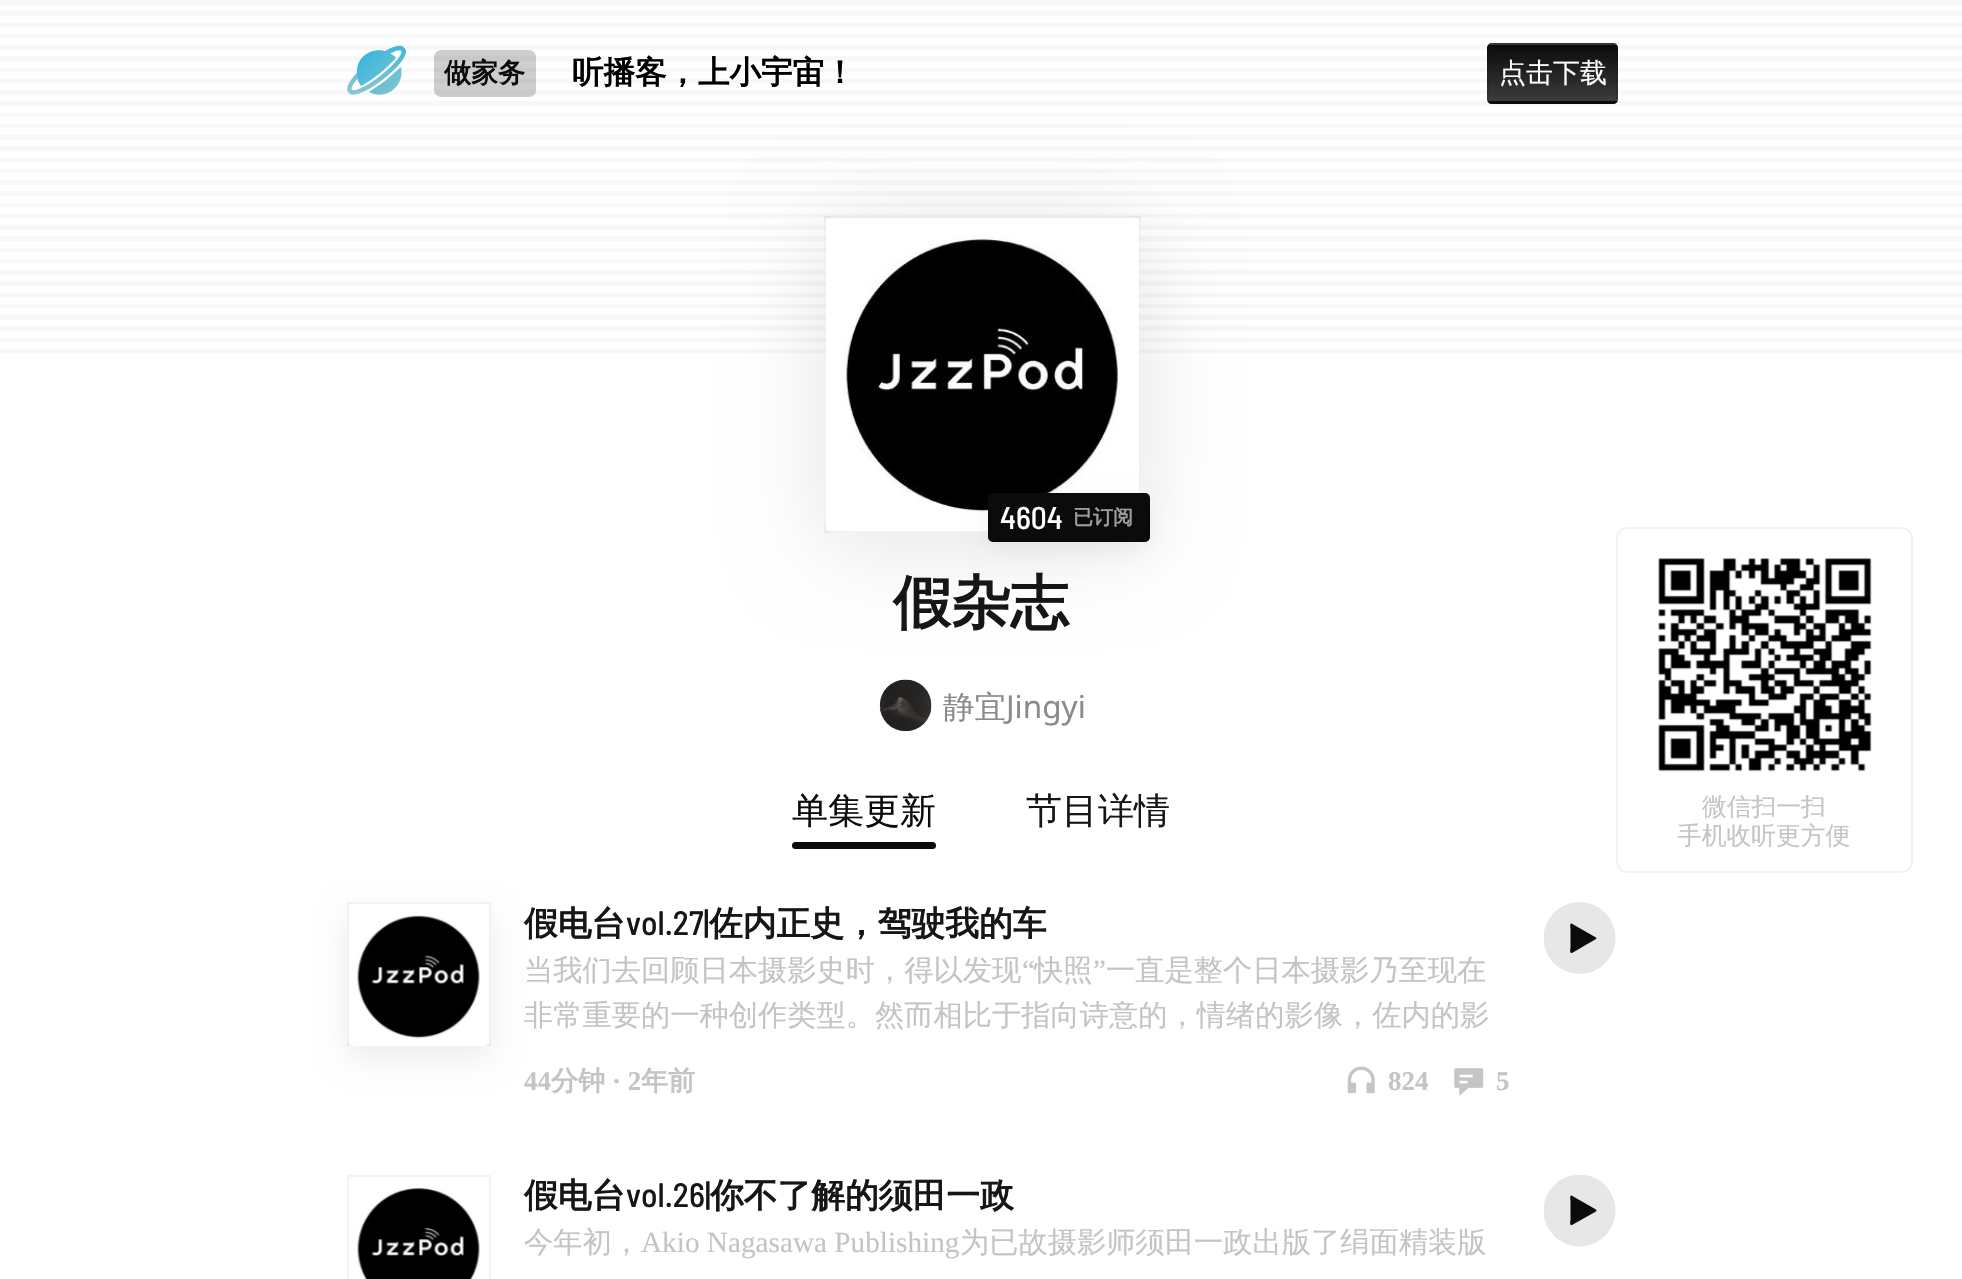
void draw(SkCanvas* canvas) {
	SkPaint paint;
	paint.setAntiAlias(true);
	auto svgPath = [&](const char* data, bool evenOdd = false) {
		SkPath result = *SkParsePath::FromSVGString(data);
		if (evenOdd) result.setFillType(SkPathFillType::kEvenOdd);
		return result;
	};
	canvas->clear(0xffffffff);
	canvas->drawImageRect(SkImages::DeferredFromEncodedData(SkData::MakeFromFileName("img1.png")), SkRect::MakeXYWH(0, 0, 1962, 353), SkSamplingOptions());
	paint.setStroke(true);
	paint.setStrokeWidth(4.5);
	{
		const SkColor colors[] = {0xff25b4e1, 0xff85c5d0, 0xffe5d5be};
		const float stops[] = {0, 0.5, 1};
		const SkPoint ends[] = {{384, 25}, {364, 157}};
		paint.setShader(SkGradientShader::MakeLinear(ends, colors, stops, 3, SkTileMode::kClamp));
		paint.setAlpha(255);
	}
	canvas->drawPath(svgPath("M403 49.5C410.5 58.5 357.5 100.5 350 91C343 81.5 396 40 403 49.5Z"), paint);
	paint.setStroke(false);
	{
		const SkColor colors[] = {0xff25b4e1, 0xff85c5d0, 0xffe5d5be};
		const float stops[] = {0, 0.5, 1};
		const SkPoint ends[] = {{349, 49}, {443, 144}};
		paint.setShader(SkGradientShader::MakeLinear(ends, colors, stops, 3, SkTileMode::kClamp));
		paint.setAlpha(255);
	}
	canvas->drawPath(svgPath("M385 81L369 92C386 101 405 86 401 67ZM357 73C357 78 358 82 361 86C374 79 386 69 396 58C383 43 356 51 357 73Z"), paint);
	paint.setShader(nullptr);
	paint.setColor(0x330b0b0b);
	canvas->drawRoundRect(SkRect::MakeXYWH(434, 50, 102, 47), 7, 7, paint);
	SkFont f1(fontMgr->matchFamilyStyle("WenQuanYi Zen Hei", SkFontStyle::Bold()), 27);
	f1.setSubpixel(true);
	paint.setColor(0xff0b0b0b);
	canvas->drawString("做家务", 444, 82, f1, paint);
	SkFont f2(fontMgr->matchFamilyStyle("WenQuanYi Zen Hei", SkFontStyle::Bold()), 31.5);
	f2.setSubpixel(true);
	paint.setColor(0xff000000);
	canvas->drawString("听播客，上小宇宙！", 572, 83, f2, paint);
	canvas->save();
	canvas->clipPath(svgPath("M1492 43H1613C1616 43 1618 45 1618 48V99C1618 102 1616 104 1613 104H1492C1489 104 1487 102 1487 99V48C1487 45 1489 43 1492 43Z"), true);
	{
		const SkColor colors[] = {0xff0b0b0b, 0xff3c3c3c};
		const float stops[] = {0, 1};
		const SkPoint ends[] = {{1553, -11}, {1553, 45}};
		paint.setShader(SkGradientShader::MakeLinear(ends, colors, stops, 2, SkTileMode::kClamp));
		paint.setAlpha(255);
	}
	canvas->drawRect(SkRect::MakeXYWH(1487, 43, 131, 2), paint);
	{
		const SkColor colors[] = {0xff0b0b0b, 0xff3a3a3a};
		const float stops[] = {0, 1};
		const SkPoint ends[] = {{1553, 101}, {1553, 158}};
		paint.setShader(SkGradientShader::MakeLinear(ends, colors, stops, 2, SkTileMode::kClamp));
		paint.setAlpha(255);
	}
	canvas->drawRect(SkRect::MakeXYWH(1487, 101, 131, 3), paint);
	canvas->restore();
	paint.setStroke(true);
	paint.setStrokeWidth(2);
	paint.setShader(nullptr);
	paint.setColor(0x1a000000);
	canvas->drawRoundRect(SkRect::MakeXYWH(1488, 44, 129, 59), 4, 4, paint);
	SkFont f3(fontMgr->matchFamilyStyle("WenQuanYi Zen Hei", SkFontStyle(500, SkFontStyle::kNormal_Width, SkFontStyle::kUpright_Slant)), 27);
	f3.setSubpixel(true);
	paint.setStroke(false);
	paint.setColor(0xffffffff);
	canvas->drawString("点击下载", 1499, 82, f3, paint);
	canvas->drawImageRect(SkImages::DeferredFromEncodedData(SkData::MakeFromFileName("img3.png")), SkRect::MakeXYWH(879, 679, 53, 53), SkSamplingOptions());
	canvas->save();
	canvas->clipPath(svgPath("M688 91H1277V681H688ZM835 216H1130C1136 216 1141 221 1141 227V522C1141 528 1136 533 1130 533H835C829 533 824 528 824 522V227C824 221 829 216 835 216Z", true), true);
	paint.setColor(0x1a000000);
	paint.setMaskFilter(SkMaskFilter::MakeBlur(kNormal_SkBlurStyle, 45));
	canvas->drawRoundRect(SkRect::MakeXYWH(824, 227, 317, 318), 11, 11, paint);
	paint.setMaskFilter(nullptr);
	canvas->restore();
	paint.setStroke(true);
	paint.setColor(0x0d000000);
	canvas->drawRect(SkRect::MakeXYWH(825, 217, 315, 315), paint);
	canvas->drawImageRect(SkImages::DeferredFromEncodedData(SkData::MakeFromFileName("img2.png")), SkRect::MakeXYWH(826, 225, 312, 287), SkSamplingOptions());
	paint.setStroke(false);
	paint.setMaskFilter(SkMaskFilter::MakeBlur(kNormal_SkBlurStyle, 11));
	canvas->drawRoundRect(SkRect::MakeXYWH(988, 502, 162, 49), 5, 5, paint);
	paint.setMaskFilter(nullptr);
	paint.setColor(0xff0b0b0b);
	canvas->drawRoundRect(SkRect::MakeXYWH(988, 493, 162, 49), 5, 5, paint);
	paint.setStroke(true);
	paint.setColor(0x1a000000);
	canvas->drawRoundRect(SkRect::MakeXYWH(989, 494, 160, 47), 4, 4, paint);
	SkFont f4(fontMgr->matchFamilyStyle("Barlow Semi Condensed", SkFontStyle(500, SkFontStyle::kNormal_Width, SkFontStyle::kUpright_Slant)), 31.5);
	f4.setSubpixel(true);
	paint.setStroke(false);
	paint.setColor(0xffffffff);
	canvas->drawString("4604", 1000, 529, f4, paint);
	SkFont f5(fontMgr->matchFamilyStyle("WenQuanYi Zen Hei", SkFontStyle::Bold()), 20);
	f5.setSubpixel(true);
	paint.setColor(0xff9d9d9d);
	canvas->drawString("已订阅", 1073, 524, f5, paint);
	SkFont f6(fontMgr->matchFamilyStyle("WenQuanYi Zen Hei", SkFontStyle::Bold()), 58.5);
	f6.setSubpixel(true);
	paint.setColor(0xff161517);
	canvas->drawString("假杂志", 893, 623, f6, paint);
	SkFont f7(fontMgr->matchFamilyStyle("WenQuanYi Zen Hei", SkFontStyle(500, SkFontStyle::kNormal_Width, SkFontStyle::kUpright_Slant)), 31.5);
	f7.setSubpixel(true);
	paint.setColor(0xff8a8a8e);
	canvas->drawString("静宜", 943, 718, f7, paint);
	SkFont f8(fontMgr->matchFamilyStyle("Noto Sans", SkFontStyle::Normal()), 31.5);
	f8.setSubpixel(true);
	canvas->drawString("Jingyi", 1006, 718, f8, paint);
	SkFont f9(fontMgr->matchFamilyStyle("WenQuanYi Zen Hei", SkFontStyle(500, SkFontStyle::kNormal_Width, SkFontStyle::kUpright_Slant)), 36);
	f9.setSubpixel(true);
	paint.setColor(0xff0b0b0b);
	canvas->drawString("单集更新", 792, 823, f9, paint);
	canvas->drawRoundRect(SkRect::MakeXYWH(792, 842, 144, 7), 3.5, 3.5, paint);
	paint.setColor(0xff161517);
	canvas->drawString("节目详情", 1026, 823, f9, paint);
	canvas->save();
	canvas->clipPath(svgPath("M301 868H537V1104H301ZM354 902H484C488 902 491 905 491 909V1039C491 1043 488 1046 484 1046H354C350 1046 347 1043 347 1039V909C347 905 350 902 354 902Z", true), true);
	paint.setColor(0x12000000);
	paint.setMaskFilter(SkMaskFilter::MakeBlur(kNormal_SkBlurStyle, 15));
	canvas->drawRoundRect(SkRect::MakeXYWH(347, 914, 144, 144), 7, 7, paint);
	paint.setMaskFilter(nullptr);
	canvas->restore();
	paint.setStroke(true);
	paint.setColor(0x0d000000);
	canvas->drawRect(SkRect::MakeXYWH(348, 903, 142, 142), paint);
	canvas->drawImageRect(SkImages::DeferredFromEncodedData(SkData::MakeFromFileName("img4.png")), SkRect::MakeXYWH(349, 915, 139, 131), SkSamplingOptions());
	SkFont f10(fontMgr->matchFamilyStyle("WenQuanYi Zen Hei", SkFontStyle::Bold()), 33.75);
	f10.setSubpixel(true);
	paint.setStroke(false);
	paint.setColor(0xff161517);
	canvas->drawString("假电台", 524, 935, f10, paint);
	SkFont f11(fontMgr->matchFamilyStyle("Barlow Semi Condensed", SkFontStyle(500, SkFontStyle::kNormal_Width, SkFontStyle::kUpright_Slant)), 33.75);
	f11.setSubpixel(true);
	canvas->drawString("vol.27|", 626, 935, f11, paint);
	canvas->drawString("佐内正史，驾驶我的车", 709, 935, f10, paint);
	SkFont f12(fontMgr->matchFamilyStyle("WenQuanYi Zen Hei", SkFontStyle(500, SkFontStyle::kNormal_Width, SkFontStyle::kUpright_Slant)), 29.25);
	f12.setSubpixel(true);
	paint.setColor(0xffc4c4c7);
	canvas->drawString("当我们去回顾日本摄影史时，得以发现", 524, 980, f12, paint);
	SkFont f13(fontMgr->matchFamilyStyle("Liberation Serif", SkFontStyle::Normal()), 29.25);
	f13.setSubpixel(true);
	canvas->drawString("“", 1022, 980, f13, paint);
	canvas->drawString("快照", 1034, 980, f12, paint);
	canvas->drawString("”", 1093, 980, f13, paint);
	canvas->drawString("一直是整个日本摄影乃至现在", 1106, 980, f12, paint);
	canvas->drawString("非常重要的一种创作类型。然而相比于指向诗意的，情绪的影像，佐内的影", 524, 1025, f12, paint);
	SkFont f14(fontMgr->matchFamilyStyle("Liberation Serif", SkFontStyle::Bold()), 27);
	f14.setSubpixel(true);
	canvas->drawString("44", 524, 1090, f14, paint);
	canvas->drawString("分钟", 551, 1090, f1, paint);
	canvas->drawString("· 2", 612, 1090, f14, paint);
	canvas->drawString("年前", 641, 1090, f1, paint);
	canvas->drawImageRect(SkImages::DeferredFromEncodedData(SkData::MakeFromFileName("img5.png")), SkRect::MakeXYWH(1347, 1066, 28, 28), SkSamplingOptions());
	canvas->drawString("824", 1388, 1090, f14, paint);
	canvas->drawImageRect(SkImages::DeferredFromEncodedData(SkData::MakeFromFileName("img6.png")), SkRect::MakeXYWH(1454, 1068, 30, 28), SkSamplingOptions());
	canvas->drawString("5", 1496, 1090, f14, paint);
	canvas->save();
	canvas->clipRect(SkRect::MakeXYWH(1544, 902, 72, 72));
	paint.setColor(0xffe7e7e7);
	canvas->drawCircle(1579.5, 938, 36, paint);
	canvas->restore();
	paint.setColor(0xff0b0b0b);
	canvas->drawPath(svgPath("M1596 937.5C1596.5 937.5 1596.5 938.5 1596 939L1572 953H1571C1569.5 952 1570.5 948 1570.5 947.5V929C1570.5 927 1569.5 923.5 1571.5 923.5Z"), paint);
	paint.setStroke(true);
	paint.setColor(0x0d000000);
	canvas->drawRect(SkRect::MakeXYWH(348, 1176, 142, 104), paint);
	canvas->drawImageRect(SkImages::DeferredFromEncodedData(SkData::MakeFromFileName("img7.png")), SkRect::MakeXYWH(357, 1188, 123, 91), SkSamplingOptions());
	paint.setStroke(false);
	paint.setColor(0xff161517);
	canvas->drawString("假电台", 524, 1207, f10, paint);
	canvas->drawString("vol.26|", 626, 1207, f11, paint);
	canvas->drawString("你不了解的须田一政", 710, 1207, f10, paint);
	paint.setColor(0xffc4c4c7);
	canvas->drawString("今年初，", 524, 1252, f12, paint);
	canvas->drawString("Akio Nagasawa Publishing", 641, 1252, f13, paint);
	canvas->drawString("为已故摄影师须田一政出版了绢面精装版", 960, 1252, f12, paint);
	canvas->save();
	canvas->clipRect(SkRect::MakeXYWH(1544, 1175, 72, 72));
	paint.setColor(0xffe7e7e7);
	canvas->drawCircle(1579.5, 1210.5, 36, paint);
	canvas->restore();
	paint.setColor(0xff0b0b0b);
	canvas->drawPath(svgPath("M1596 1209.5C1596.5 1210 1596.5 1211 1596 1211.5L1572 1225H1571C1569.5 1224.5 1570.5 1220 1570.5 1219.5V1201.5C1570.5 1199 1569.5 1195.5 1571.5 1195.5Z"), paint);
	paint.setStroke(true);
	paint.setColor(0xfff2f2f2);
	canvas->drawRoundRect(SkRect::MakeXYWH(1617, 528, 295, 344), 10, 10, paint);
	canvas->drawImageRect(SkImages::DeferredFromEncodedData(SkData::MakeFromFileName("img8.png")), SkRect::MakeXYWH(1658, 558, 214, 214), SkSamplingOptions());
	SkFont f15(fontMgr->matchFamilyStyle("WenQuanYi Zen Hei", SkFontStyle(500, SkFontStyle::kNormal_Width, SkFontStyle::kUpright_Slant)), 24.75);
	f15.setSubpixel(true);
	paint.setStroke(false);
	paint.setColor(0xffc4c4c7);
	canvas->drawString("微信扫一扫", 1702, 815, f15, paint);
	canvas->drawString("手机收听更方便", 1677, 844, f15, paint);
}
